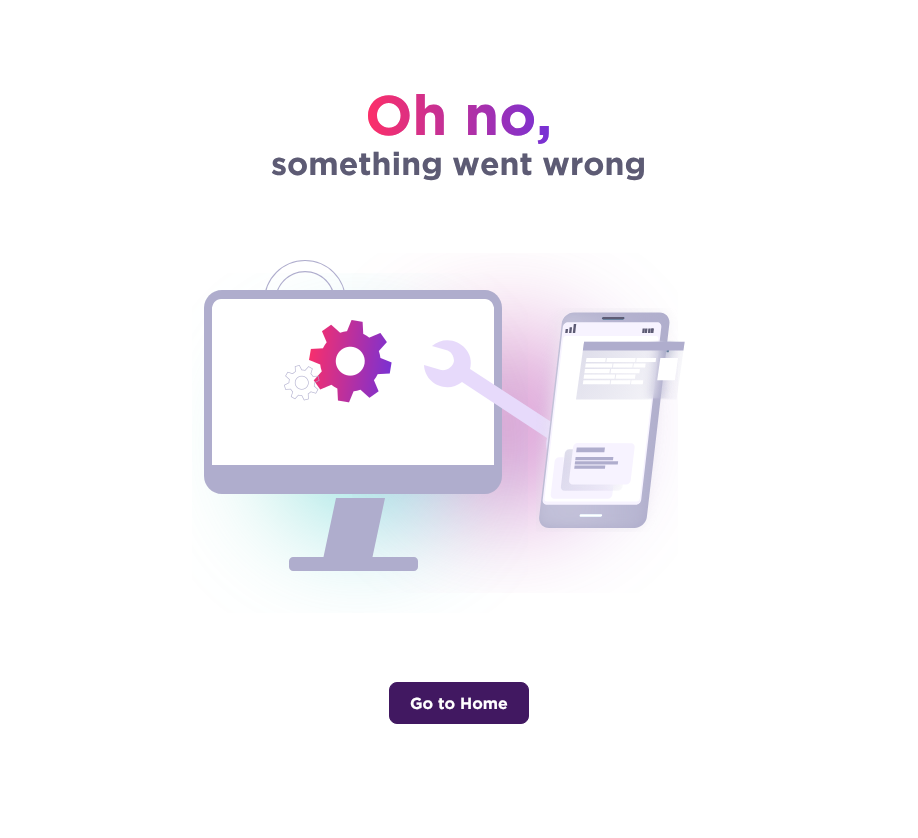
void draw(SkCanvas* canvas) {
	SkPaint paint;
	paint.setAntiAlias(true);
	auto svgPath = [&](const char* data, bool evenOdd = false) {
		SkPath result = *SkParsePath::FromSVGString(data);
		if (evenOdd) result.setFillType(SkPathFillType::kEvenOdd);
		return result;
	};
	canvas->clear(0xffffffff);
	SkFont f1(fontMgr->matchFamilyStyle("Gotham", SkFontStyle::Bold()), 56);
	f1.setSubpixel(true);
	{
		const SkColor colors[] = {0xfffe2f67, 0xff7431d7};
		const float stops[] = {0, 1};
		const SkPoint ends[] = {{365, 115}, {553, 115}};
		paint.setShader(SkGradientShader::MakeLinear(ends, colors, stops, 2, SkTileMode::kClamp));
		paint.setAlpha(255);
	}
	canvas->drawString("Oh no,", 365, 135, f1, paint);
	SkFont f2(fontMgr->matchFamilyStyle("Gotham", SkFontStyle::Bold()), 32);
	f2.setSubpixel(true);
	paint.setShader(nullptr);
	paint.setColor(0xff5d5b74);
	canvas->drawString("something went wrong", 271, 175, f2, paint);
	canvas->drawImageRect(SkImages::DeferredFromEncodedData(SkData::MakeFromFileName("img2.png")), SkRect::MakeXYWH(352, 253, 326, 340), SkSamplingOptions());
	canvas->drawImageRect(SkImages::DeferredFromEncodedData(SkData::MakeFromFileName("img3.png")), SkRect::MakeXYWH(192, 273, 336, 340), SkSamplingOptions());
	canvas->drawImageRect(SkImages::DeferredFromEncodedData(SkData::MakeFromFileName("img1.png")), SkRect::MakeXYWH(265, 260, 80, 30), SkSamplingOptions());
	paint.setColor(0xffafadcd);
	canvas->drawPath(svgPath("M222 494H485C494 494 502 486 502 476V308C502 298 494 290 485 290H222C212 290 204 298 204 308V476C204 486 212 494 222 494Z"), paint);
	canvas->save();
	canvas->clipRect(SkRect::MakeXYWH(212, 299, 282, 166));
	paint.setColor(0xffffffff);
	canvas->drawPath(svgPath("M494 465V335C494 331 500 299 485 299H221C206 299 212 331 212 335V465Z"), paint);
	canvas->restore();
	paint.setColor(0xffafadcd);
	canvas->drawPath(svgPath("M322 564H371L385 498H336Z"), paint);
	canvas->drawPath(svgPath("M293 571H414C416 571 418 569 418 567V561C418 559 416 557 414 557H293C291 557 289 559 289 561V567C289 569 291 571 293 571Z"), paint);
	paint.setColor(0xffe7dafb);
	canvas->drawPath(svgPath("M462 382L547 438C541 461 569 477 586 462L571 458C566 456 563 451 564 446C565 440 571 436 577 438L594 443C592 424 570 414 556 425L470 369C476 347 449 331 432 346L446 350C451 351 454 356 454 361C453 367 447 371 441 370L424 365C425 384 447 394 462 382Z"), paint);
	canvas->drawImageRect(SkImages::DeferredFromEncodedData(SkData::MakeFromFileName("img4.png")), SkRect::MakeXYWH(536, 308, 149, 224), SkSamplingOptions());
	canvas->drawImageRect(SkImages::DeferredFromEncodedData(SkData::MakeFromFileName("img6.png")), SkRect::MakeXYWH(309, 320, 83, 83), SkSamplingOptions());
	canvas->drawImageRect(SkImages::DeferredFromEncodedData(SkData::MakeFromFileName("img5.png")), SkRect::MakeXYWH(284, 365, 36, 36), SkSamplingOptions());
	paint.setColor(0xff411861);
	canvas->drawRoundRect(SkRect::MakeXYWH(389.5, 682.5, 139, 41), 7.5, 7.5, paint);
	paint.setStroke(true);
	paint.setStrokeWidth(1);
	canvas->drawRoundRect(SkRect::MakeXYWH(389.5, 682.5, 139, 41), 7.5, 7.5, paint);
	SkFont f3(fontMgr->matchFamilyStyle("Gotham", SkFontStyle::Bold()), 16);
	f3.setSubpixel(true);
	paint.setStroke(false);
	paint.setColor(0xffffffff);
	canvas->drawString("Go to Home", 410, 709, f3, paint);
}
